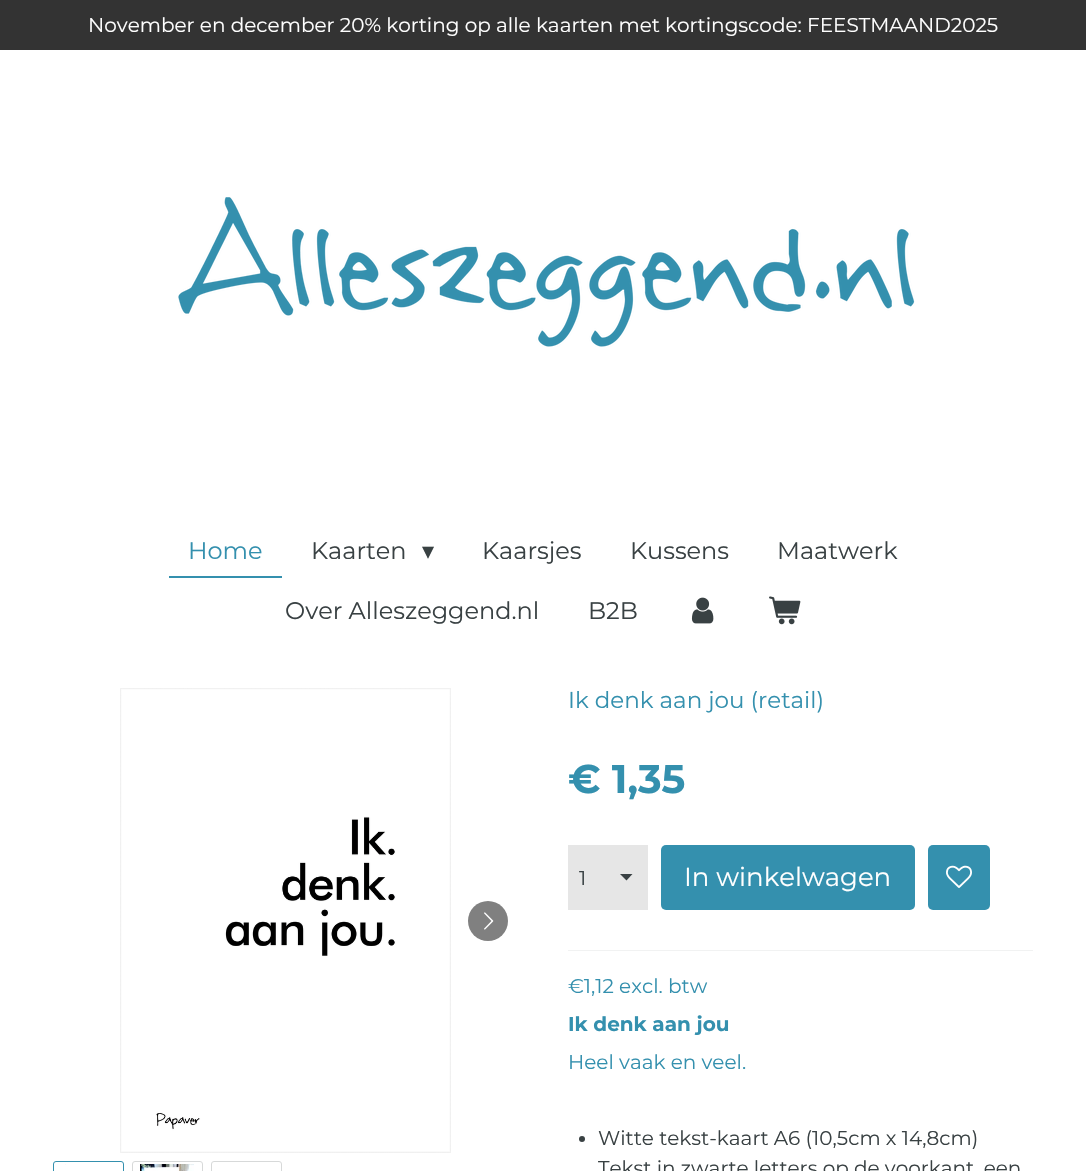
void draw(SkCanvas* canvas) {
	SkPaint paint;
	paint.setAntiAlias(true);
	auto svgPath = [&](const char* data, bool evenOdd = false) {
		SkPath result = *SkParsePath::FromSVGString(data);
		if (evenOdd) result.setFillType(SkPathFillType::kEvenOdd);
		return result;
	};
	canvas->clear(0xffffffff);
	paint.setColor(0xff333333);
	canvas->drawRect(SkRect::MakeXYWH(0, 0, 1086, 50), paint);
	SkFont f1(fontMgr->matchFamilyStyle("Montserrat", SkFontStyle::Normal()), 20);
	f1.setSubpixel(true);
	paint.setColor(0xffffffff);
	canvas->drawString("November en december 20% korting op alle kaarten met kortingscode: FEESTMAAND2025", 88, 32, f1, paint);
	canvas->drawImageRect(SkImages::DeferredFromEncodedData(SkData::MakeFromFileName("img1.png")), SkRect::MakeXYWH(178, 197, 737, 150), SkSamplingOptions());
	paint.setColor(0xff3490ae);
	canvas->drawRect(SkRect::MakeXYWH(169, 576, 113, 2), paint);
	SkFont f2(fontMgr->matchFamilyStyle("Montserrat", SkFontStyle::Normal()), 24);
	f2.setSubpixel(true);
	canvas->drawString("Home", 188, 559, f2, paint);
	paint.setColor(0xff394143);
	canvas->drawString("Kaarten", 311, 559, f2, paint);
	SkFont f3(fontMgr->matchFamilyStyle("DejaVu Sans", SkFontStyle::Normal()), 24);
	f3.setSubpixel(true);
	canvas->drawString("▾", 422, 559, f3, paint);
	canvas->drawString("Kaarsjes", 482, 559, f2, paint);
	canvas->drawString("Kussens", 630, 559, f2, paint);
	canvas->drawString("Maatwerk", 777, 559, f2, paint);
	canvas->drawString("Over Alleszeggend.nl", 285, 619, f2, paint);
	canvas->drawString("B2B", 588, 619, f2, paint);
	canvas->drawImageRect(SkImages::DeferredFromEncodedData(SkData::MakeFromFileName("img2.png")), SkRect::MakeXYWH(691, 597, 23, 27), SkSamplingOptions());
	canvas->drawImageRect(SkImages::DeferredFromEncodedData(SkData::MakeFromFileName("img3.png")), SkRect::MakeXYWH(769, 596, 32, 29), SkSamplingOptions());
	canvas->drawImageRect(SkImages::DeferredFromEncodedData(SkData::MakeFromFileName("img4.png")), SkRect::MakeXYWH(120, 688, 331, 465), SkSamplingOptions());
	paint.setColor(0xff808080);
	canvas->drawCircle(488, 921, 20, paint);
	canvas->drawImageRect(SkImages::DeferredFromEncodedData(SkData::MakeFromFileName("img5.png")), SkRect::MakeXYWH(484, 912, 10, 18), SkSamplingOptions());
	paint.setStroke(true);
	paint.setStrokeWidth(1);
	paint.setColor(0xff3490ae);
	canvas->drawRoundRect(SkRect::MakeXYWH(53.5, 1161.5, 70, 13), 2.5, 2.5, paint);
	paint.setStroke(false);
	paint.setColor(0xfffafafa);
	canvas->drawRect(SkRect::MakeXYWH(65, 1164, 1, 1), paint);
	paint.setStroke(true);
	paint.setColor(0xffd7d9d9);
	canvas->drawRoundRect(SkRect::MakeXYWH(132.5, 1161.5, 70, 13), 2.5, 2.5, paint);
	canvas->drawImageRect(SkImages::DeferredFromEncodedData(SkData::MakeFromFileName("img6.png")), SkRect::MakeXYWH(140, 1164, 54, 7), SkSamplingOptions());
	canvas->drawRoundRect(SkRect::MakeXYWH(211.5, 1161.5, 70, 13), 2.5, 2.5, paint);
	SkFont f4(fontMgr->matchFamilyStyle("Montserrat", SkFontStyle::Normal()), 23);
	f4.setSubpixel(true);
	paint.setStroke(false);
	paint.setColor(0xff3490ae);
	canvas->drawString("Ik denk aan jou (retail)", 568, 708, f4, paint);
	SkFont f5(fontMgr->matchFamilyStyle("Montserrat", SkFontStyle::Bold()), 40);
	f5.setSubpixel(true);
	canvas->drawString("€ 1,35", 568, 793, f5, paint);
	paint.setColor(0xffe6e6e6);
	canvas->drawRect(SkRect::MakeXYWH(568, 845, 80, 65), paint);
	paint.setColor(0xff394143);
	canvas->drawPath(svgPath("M626.5 880.5L620 874H632.5Z"), paint);
	canvas->drawString("1", 579, 885, f1, paint);
	paint.setColor(0xff3490ae);
	canvas->drawRoundRect(SkRect::MakeXYWH(661, 845, 254, 65), 5, 5, paint);
	SkFont f6(fontMgr->matchFamilyStyle("Montserrat", SkFontStyle::Normal()), 26);
	f6.setSubpixel(true);
	paint.setColor(0xffffffff);
	canvas->drawString("In winkelwagen", 684, 886, f6, paint);
	paint.setColor(0xff3490ae);
	canvas->drawRoundRect(SkRect::MakeXYWH(928, 845, 62, 65), 5, 5, paint);
	canvas->drawImageRect(SkImages::DeferredFromEncodedData(SkData::MakeFromFileName("img7.png")), SkRect::MakeXYWH(946, 865, 26, 23), SkSamplingOptions());
	paint.setColor(0xfff1f2f2);
	canvas->drawRect(SkRect::MakeXYWH(568, 950, 465, 1), paint);
	paint.setColor(0xff3490ae);
	canvas->drawString("€1,12 excl. btw", 568, 993, f1, paint);
	SkFont f7(fontMgr->matchFamilyStyle("Montserrat", SkFontStyle::Bold()), 20);
	f7.setSubpixel(true);
	canvas->drawString("Ik denk aan jou", 568, 1031, f7, paint);
	canvas->drawString("Heel vaak en veel.", 568, 1069, f1, paint);
	paint.setColor(0xff394143);
	canvas->drawCircle(582, 1139, 3, paint);
	canvas->drawString("Witte tekst-kaart A6 (10,5cm x 14,8cm)", 598, 1145, f1, paint);
	canvas->drawString("Tekst in zwarte letters op de voorkant, een", 598, 1175, f1, paint);
}
